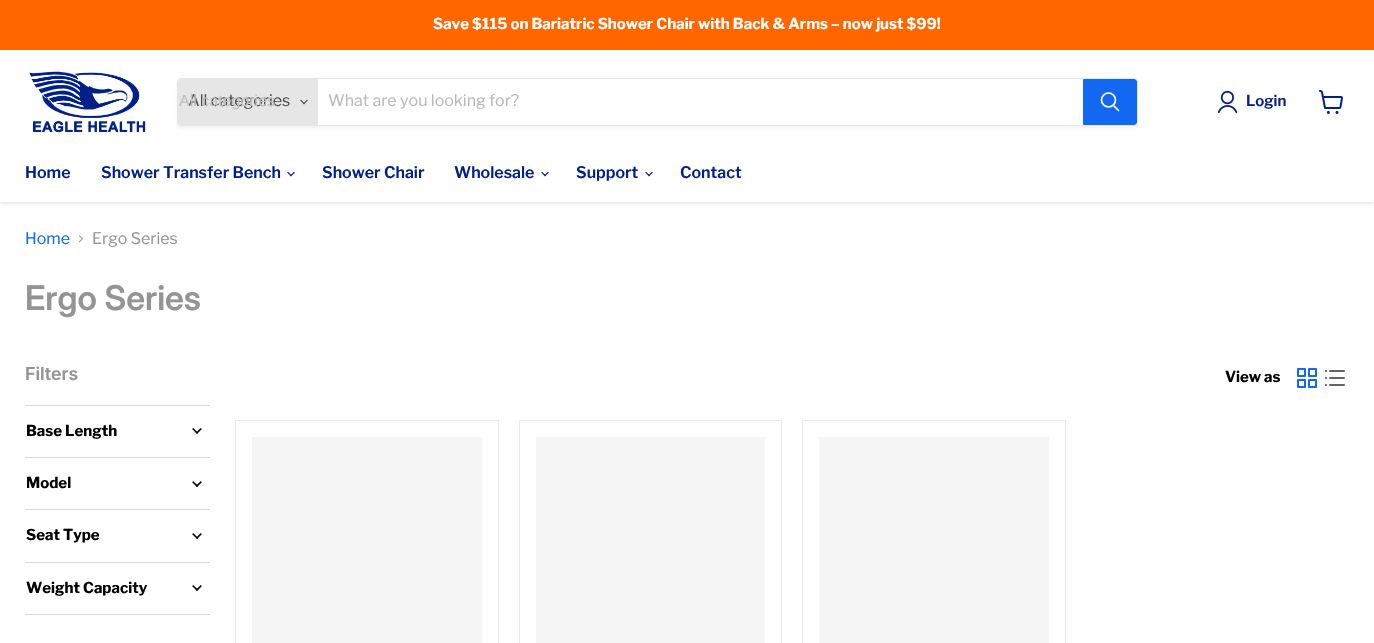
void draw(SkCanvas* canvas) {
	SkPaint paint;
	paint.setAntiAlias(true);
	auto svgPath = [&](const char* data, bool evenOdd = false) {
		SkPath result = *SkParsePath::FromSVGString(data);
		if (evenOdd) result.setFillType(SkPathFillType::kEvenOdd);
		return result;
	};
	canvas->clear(0xffffffff);
	canvas->save();
	canvas->clipRect(SkRect::MakeXYWH(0, 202, 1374, 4));
	paint.setColor(0x40808080);
	paint.setMaskFilter(SkMaskFilter::MakeBlur(kNormal_SkBlurStyle, 2));
	canvas->drawRect(SkRect::MakeXYWH(0, 51, 1374, 152), paint);
	paint.setMaskFilter(nullptr);
	canvas->restore();
	paint.setColor(0xffff6600);
	canvas->drawRect(SkRect::MakeXYWH(0, 0, 1374, 50), paint);
	SkFont f1(fontMgr->matchFamilyStyle("Libre Franklin", SkFontStyle::Bold()), 15);
	f1.setSubpixel(true);
	paint.setColor(0xffffffff);
	canvas->drawString("Save $115 on Bariatric Shower Chair with Back & Arms – now just $99!", 433, 29, f1, paint);
	canvas->drawImageRect(SkImages::DeferredFromEncodedData(SkData::MakeFromFileName("img1.png")), SkRect::MakeXYWH(29, 71, 117, 62), SkSamplingOptions());
	canvas->save();
	canvas->clipPath(svgPath("M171 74H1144V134H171ZM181 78H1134C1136 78 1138 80 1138 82V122C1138 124 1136 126 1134 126H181C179 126 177 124 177 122V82C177 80 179 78 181 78Z", true), true);
	paint.setColor(0x1c808080);
	paint.setMaskFilter(SkMaskFilter::MakeBlur(kNormal_SkBlurStyle, 1.5));
	canvas->drawRoundRect(SkRect::MakeXYWH(177, 80, 961, 48), 4, 4, paint);
	paint.setMaskFilter(nullptr);
	canvas->restore();
	paint.setStroke(true);
	paint.setStrokeWidth(1);
	paint.setColor(0x33808080);
	canvas->drawRoundRect(SkRect::MakeXYWH(177.5, 78.5, 960, 47), 3.5, 3.5, paint);
	paint.setStroke(false);
	paint.setColor(0xffe6e6e6);
	canvas->drawPath(svgPath("M181 79H318V125H181C179.5 125 178 123.5 178 122V82C178 80.5 179.5 79 181 79Z"), paint);
	SkFont f2(fontMgr->matchFamilyStyle("Libre Franklin", SkFontStyle::Normal()), 16);
	f2.setSubpixel(true);
	paint.setColor(0xff4d4d4d);
	canvas->drawString("All categories", 188, 106, f2, paint);
	SkFont f3(fontMgr->matchFamilyStyle("Liberation Sans", SkFontStyle::Normal()), 16);
	f3.setSubpixel(true);
	paint.setColor(0xffbfbfbf);
	canvas->drawString("All categories", 179, 106, f3, paint);
	canvas->drawImageRect(SkImages::DeferredFromEncodedData(SkData::MakeFromFileName("img2.png")), SkRect::MakeXYWH(300, 99, 8, 6), SkSamplingOptions());
	paint.setColor(0xffb8b8b8);
	canvas->drawString("What are you looking for?", 328, 106, f2, paint);
	paint.setColor(0xff1268f1);
	canvas->drawPath(svgPath("M1083.5 79.5H1134C1135.5 79.5 1136.5 80.5 1136.5 82V122C1136.5 123.5 1135.5 124.5 1134 124.5H1083.5Z"), paint);
	paint.setStroke(true);
	canvas->drawPath(svgPath("M1083.5 79.5H1134C1135.5 79.5 1136.5 80.5 1136.5 82V122C1136.5 123.5 1135.5 124.5 1134 124.5H1083.5Z"), paint);
	paint.setStrokeWidth(1.7);
	paint.setStrokeCap(SkPaint::kRound_Cap);
	paint.setColor(0xffffffff);
	canvas->drawPath(svgPath("M1118.5 110.5L1113.5 105.5"), paint);
	paint.setStrokeCap(SkPaint::kButt_Cap);
	canvas->drawCircle(1108.5, 100, 7, paint);
	canvas->drawImageRect(SkImages::DeferredFromEncodedData(SkData::MakeFromFileName("img3.png")), SkRect::MakeXYWH(1217, 90, 21, 24), SkSamplingOptions());
	SkFont f4(fontMgr->matchFamilyStyle("Libre Franklin", SkFontStyle(600, SkFontStyle::kNormal_Width, SkFontStyle::kUpright_Slant)), 15);
	f4.setSubpixel(true);
	paint.setStroke(false);
	paint.setColor(0xff00218b);
	canvas->drawString("Login", 1246, 106, f4, paint);
	canvas->drawImageRect(SkImages::DeferredFromEncodedData(SkData::MakeFromFileName("img4.png")), SkRect::MakeXYWH(1319, 90, 24, 24), SkSamplingOptions());
	SkFont f5(fontMgr->matchFamilyStyle("Libre Franklin", SkFontStyle(600, SkFontStyle::kNormal_Width, SkFontStyle::kUpright_Slant)), 16);
	f5.setSubpixel(true);
	canvas->drawString("Home", 25, 178, f5, paint);
	canvas->drawString("Shower Transfer Bench", 101, 178, f5, paint);
	canvas->drawImageRect(SkImages::DeferredFromEncodedData(SkData::MakeFromFileName("img5.png")), SkRect::MakeXYWH(287, 171, 8, 6), SkSamplingOptions());
	canvas->drawString("Shower Chair", 322, 178, f5, paint);
	canvas->drawString("Wholesale", 454, 178, f5, paint);
	canvas->drawImageRect(SkImages::DeferredFromEncodedData(SkData::MakeFromFileName("img5.png")), SkRect::MakeXYWH(541, 171, 8, 6), SkSamplingOptions());
	canvas->drawString("Support", 576, 178, f5, paint);
	canvas->drawImageRect(SkImages::DeferredFromEncodedData(SkData::MakeFromFileName("img5.png")), SkRect::MakeXYWH(645, 171, 8, 6), SkSamplingOptions());
	canvas->drawString("Contact", 680, 178, f5, paint);
	paint.setColor(0xff1268f1);
	canvas->drawString("Home", 25, 244, f2, paint);
	canvas->drawImageRect(SkImages::DeferredFromEncodedData(SkData::MakeFromFileName("img6.png")), SkRect::MakeXYWH(79, 235, 4, 8), SkSamplingOptions());
	paint.setColor(0xff949494);
	canvas->drawString("Ergo Series", 92, 244, f2, paint);
	SkFont f6(fontMgr->matchFamilyStyle("Inter", SkFontStyle(600, SkFontStyle::kNormal_Width, SkFontStyle::kUpright_Slant)), 34);
	f6.setSubpixel(true);
	canvas->drawString("Ergo Series", 25, 310, f6, paint);
	SkFont f7(fontMgr->matchFamilyStyle("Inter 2", SkFontStyle(600, SkFontStyle::kNormal_Width, SkFontStyle::kUpright_Slant)), 18);
	f7.setSubpixel(true);
	canvas->drawString("Filters", 25, 380, f7, paint);
	paint.setColor(0xffd9d9d9);
	canvas->drawRect(SkRect::MakeXYWH(25, 405, 185, 1), paint);
	paint.setColor(0xff000000);
	canvas->drawString("Base Length", 26, 436, f1, paint);
	canvas->drawImageRect(SkImages::DeferredFromEncodedData(SkData::MakeFromFileName("img7.png")), SkRect::MakeXYWH(192, 428, 10, 6), SkSamplingOptions());
	paint.setColor(0xffd9d9d9);
	canvas->drawRect(SkRect::MakeXYWH(25, 457, 185, 1), paint);
	paint.setColor(0xff000000);
	canvas->drawString("Model", 26, 488, f1, paint);
	canvas->drawImageRect(SkImages::DeferredFromEncodedData(SkData::MakeFromFileName("img8.png")), SkRect::MakeXYWH(192, 481, 10, 6), SkSamplingOptions());
	paint.setColor(0xffd9d9d9);
	canvas->drawRect(SkRect::MakeXYWH(25, 509, 185, 1), paint);
	paint.setColor(0xff000000);
	canvas->drawString("Seat Type", 26, 540, f1, paint);
	canvas->drawImageRect(SkImages::DeferredFromEncodedData(SkData::MakeFromFileName("img9.png")), SkRect::MakeXYWH(192, 533, 10, 6), SkSamplingOptions());
	paint.setColor(0xffd9d9d9);
	canvas->drawRect(SkRect::MakeXYWH(25, 562, 185, 1), paint);
	canvas->drawRect(SkRect::MakeXYWH(25, 614, 185, 1), paint);
	paint.setColor(0xff000000);
	canvas->drawString("Weight Capacity", 26, 593, f1, paint);
	canvas->drawImageRect(SkImages::DeferredFromEncodedData(SkData::MakeFromFileName("img10.png")), SkRect::MakeXYWH(192, 585, 10, 6), SkSamplingOptions());
	canvas->drawString("View as", 1225, 382, f1, paint);
	canvas->drawImageRect(SkImages::DeferredFromEncodedData(SkData::MakeFromFileName("img11.png")), SkRect::MakeXYWH(1297, 368, 20, 20), SkSamplingOptions());
	canvas->drawImageRect(SkImages::DeferredFromEncodedData(SkData::MakeFromFileName("img12.png")), SkRect::MakeXYWH(1325, 370, 20, 16), SkSamplingOptions());
	paint.setStroke(true);
	paint.setStrokeWidth(1);
	paint.setColor(0xffebebeb);
	canvas->drawRect(SkRect::MakeXYWH(235.5, 420.5, 263, 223), paint);
	paint.setStroke(false);
	paint.setColor(0xfff5f5f5);
	canvas->drawRect(SkRect::MakeXYWH(252, 437, 230, 206), paint);
	paint.setStroke(true);
	paint.setColor(0xffebebeb);
	canvas->drawRect(SkRect::MakeXYWH(519.5, 420.5, 262, 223), paint);
	paint.setStroke(false);
	paint.setColor(0xfff5f5f5);
	canvas->drawRect(SkRect::MakeXYWH(536, 437, 229, 206), paint);
	paint.setStroke(true);
	paint.setColor(0xffebebeb);
	canvas->drawRect(SkRect::MakeXYWH(802.5, 420.5, 263, 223), paint);
	paint.setStroke(false);
	paint.setColor(0xfff5f5f5);
	canvas->drawRect(SkRect::MakeXYWH(819, 437, 230, 206), paint);
}
